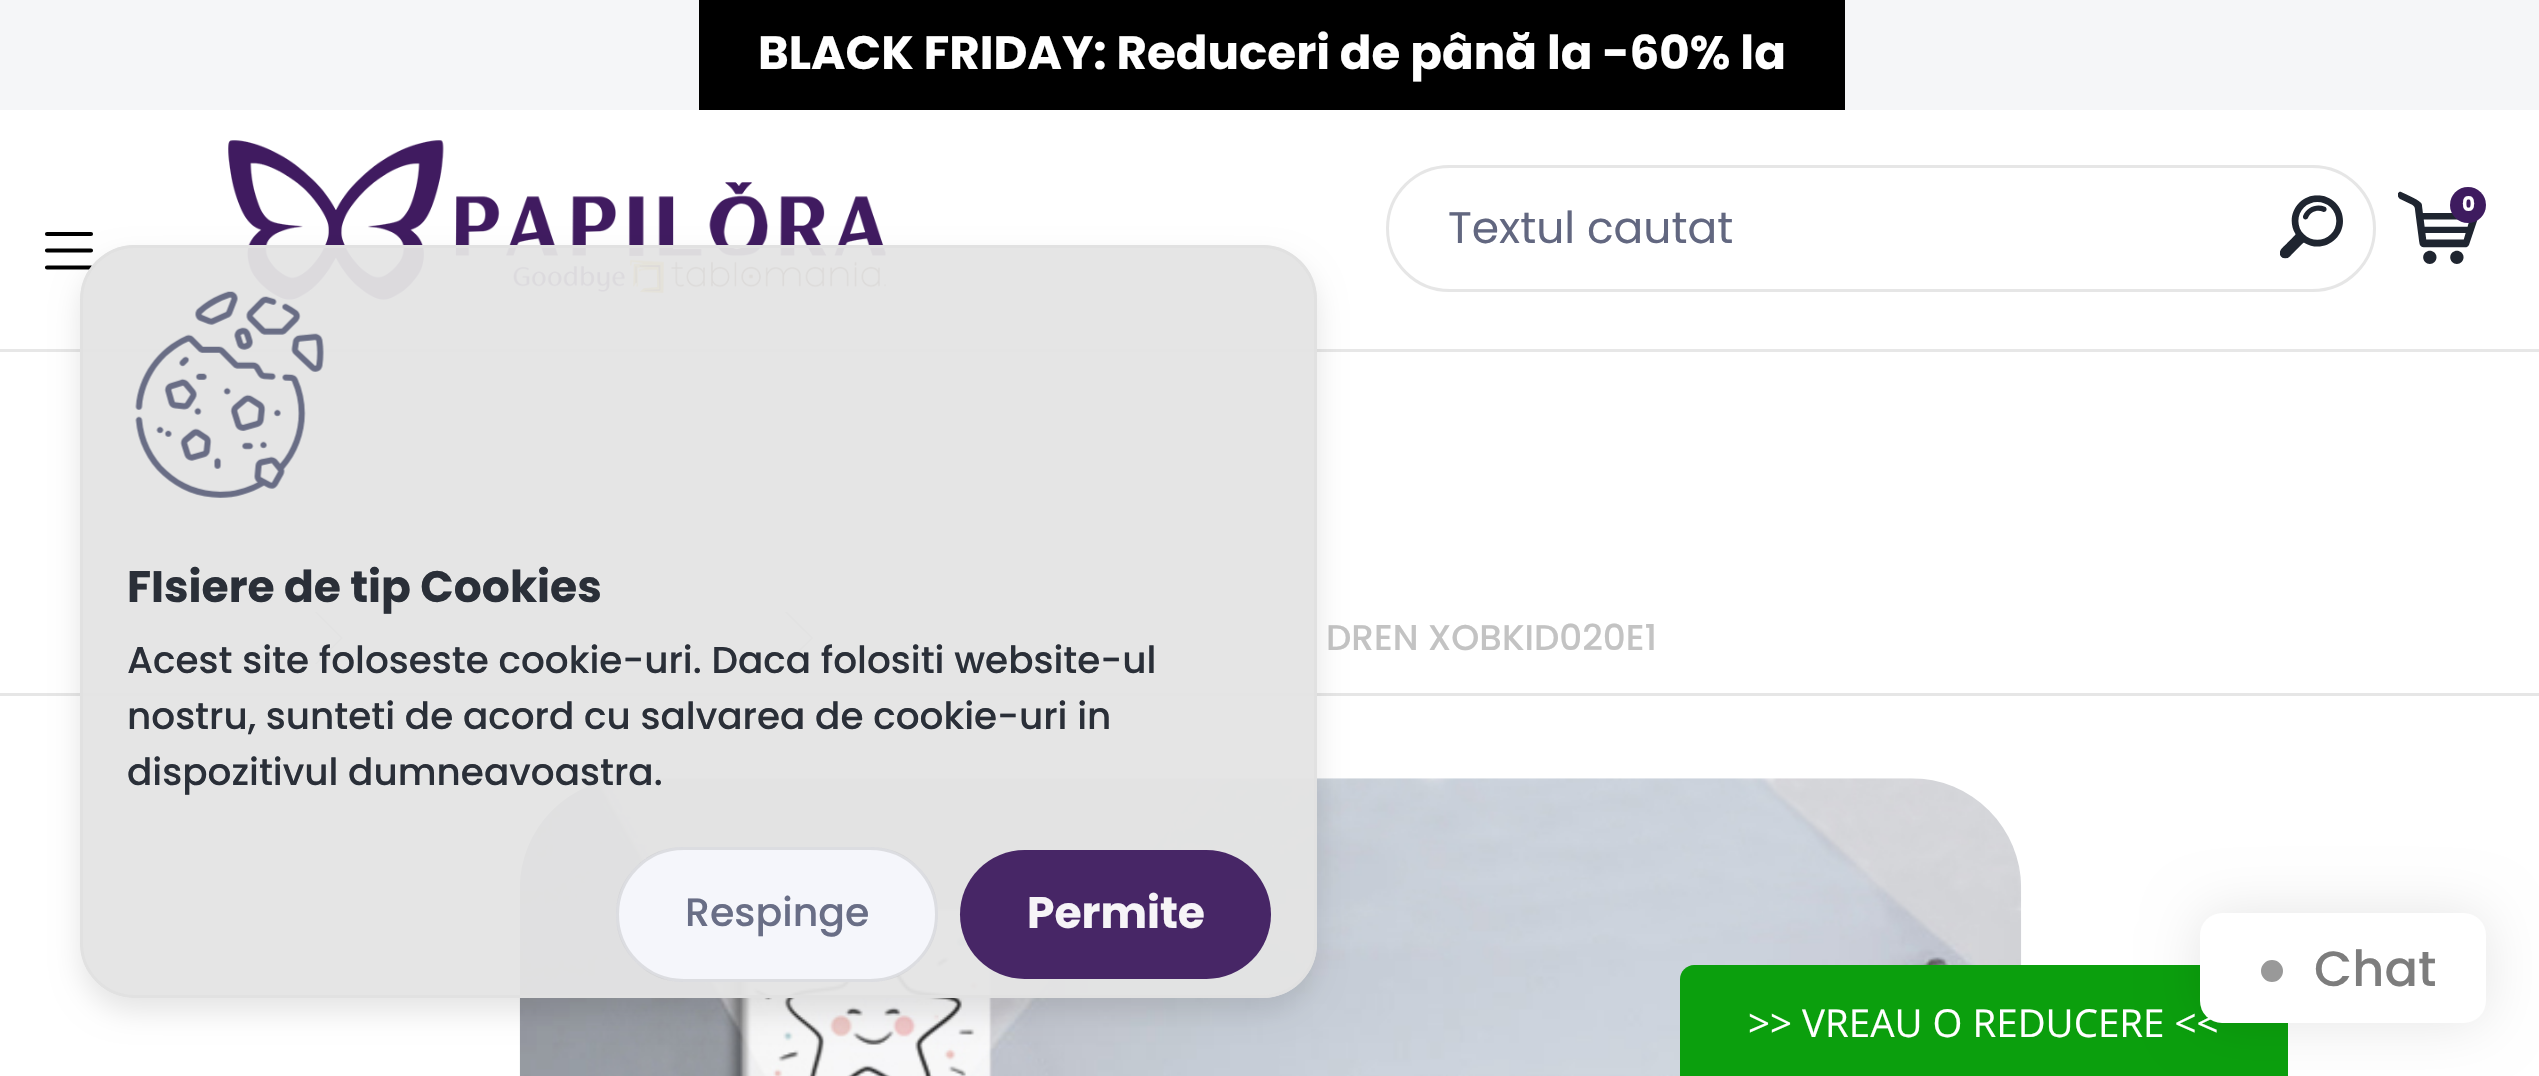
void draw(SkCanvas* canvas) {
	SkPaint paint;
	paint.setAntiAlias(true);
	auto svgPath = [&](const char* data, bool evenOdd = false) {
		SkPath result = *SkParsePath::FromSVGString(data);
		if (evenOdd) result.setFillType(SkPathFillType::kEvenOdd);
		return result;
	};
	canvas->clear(0xffffffff);
	paint.setColor(0xfff5f6f8);
	canvas->drawRect(SkRect::MakeXYWH(0, 0, 2539, 110), paint);
	paint.setColor(0xff000000);
	canvas->drawRect(SkRect::MakeXYWH(699, 0, 1146, 110), paint);
	SkFont f1(fontMgr->matchFamilyStyle("Poppins", SkFontStyle::Bold()), 46.75);
	f1.setSubpixel(true);
	paint.setColor(0xffffffff);
	canvas->drawString("BLACK FRIDAY: Reduceri de până la -60% la", 758, 69, f1, paint);
	paint.setStroke(true);
	paint.setStrokeWidth(4.1);
	paint.setStrokeCap(SkPaint::kRound_Cap);
	paint.setStrokeJoin(SkPaint::kRound_Join);
	paint.setColor(0xff000000);
	canvas->drawPath(svgPath("M47 267.5H91M47 250.5H91M47 234H91"), paint);
	paint.setStroke(false);
	paint.setColor(0xffe7e7e7);
	canvas->drawRect(SkRect::MakeXYWH(0, 349, 2539, 3), paint);
	canvas->drawImageRect(SkImages::DeferredFromEncodedData(SkData::MakeFromFileName("img1.png")), SkRect::MakeXYWH(228, 140, 658, 160), SkSamplingOptions());
	canvas->drawImageRect(SkImages::DeferredFromEncodedData(SkData::MakeFromFileName("img2.png")), SkRect::MakeXYWH(2398, 191, 80, 73), SkSamplingOptions());
	paint.setColor(0xff3e1b5f);
	canvas->drawCircle(2468, 205, 18, paint);
	SkFont f2(fontMgr->matchFamilyStyle("Poppins", SkFontStyle::Bold()), 20);
	f2.setSubpixel(true);
	paint.setColor(0xffffffff);
	canvas->drawString("0", 2462, 211, f2, paint);
	paint.setStroke(true);
	paint.setStrokeWidth(3);
	paint.setStrokeCap(SkPaint::kButt_Cap);
	paint.setStrokeJoin(SkPaint::kMiter_Join);
	paint.setColor(0xffe6e6e6);
	canvas->drawRoundRect(SkRect::MakeXYWH(1387.5, 166.5, 987, 124), 62, 62, paint);
	SkFont f3(fontMgr->matchFamilyStyle("Poppins", SkFontStyle::Normal()), 44);
	f3.setSubpixel(true);
	paint.setStroke(false);
	paint.setColor(0xff626780);
	canvas->drawString("Textul cautat", 1448, 243, f3, paint);
	canvas->drawImageRect(SkImages::DeferredFromEncodedData(SkData::MakeFromFileName("img3.png")), SkRect::MakeXYWH(2280, 195, 63, 64), SkSamplingOptions());
	paint.setColor(0xffe6e6e6);
	canvas->drawRect(SkRect::MakeXYWH(0, 693, 2539, 3), paint);
	paint.setColor(0xffc3c3c3);
	canvas->drawPath(svgPath("M314.5 612H317L343 638H340.5ZM340.5 638H343L317 664H314.5Z"), paint);
	canvas->drawPath(svgPath("M784.5 612H787.5L813.5 638H811ZM811 638H813.5L787.5 664H784.5Z"), paint);
	SkFont f4(fontMgr->matchFamilyStyle("Poppins", SkFontStyle(500, SkFontStyle::kNormal_Width, SkFontStyle::kUpright_Slant)), 35.75);
	f4.setSubpixel(true);
	canvas->drawString("DREN XOBKID020E1", 1326, 650, f4, paint);
	canvas->drawImageRect(SkImages::DeferredFromEncodedData(SkData::MakeFromFileName("img4.png")), SkRect::MakeXYWH(519, 778, 1503, 298), SkSamplingOptions());
	canvas->save();
	canvas->clipPath(svgPath("M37 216H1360V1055H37ZM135 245H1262C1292.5 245 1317 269.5 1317 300V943C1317 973.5 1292.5 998 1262 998H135C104.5 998 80 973.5 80 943V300C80 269.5 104.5 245 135 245Z", true), true);
	paint.setColor(0x1a000000);
	paint.setMaskFilter(SkMaskFilter::MakeBlur(kNormal_SkBlurStyle, 14));
	canvas->drawRoundRect(SkRect::MakeXYWH(80, 259, 1237, 753), 55, 55, paint);
	paint.setMaskFilter(nullptr);
	canvas->restore();
	paint.setColor(0xf2e4e4e4);
	canvas->drawRoundRect(SkRect::MakeXYWH(80, 245, 1237, 753), 55, 55, paint);
	paint.setStroke(true);
	paint.setColor(0xf2e0e0e0);
	canvas->drawRoundRect(SkRect::MakeXYWH(81.5, 246.5, 1234, 750), 53.5, 53.5, paint);
	canvas->drawImageRect(SkImages::DeferredFromEncodedData(SkData::MakeFromFileName("img5.png")), SkRect::MakeXYWH(135, 291, 189, 207), SkSamplingOptions());
	SkFont f5(fontMgr->matchFamilyStyle("Poppins", SkFontStyle::Bold()), 44);
	f5.setSubpixel(true);
	paint.setStroke(false);
	paint.setColor(0xff2a2f38);
	canvas->drawString("FIsiere de tip Cookies", 127, 602, f5, paint);
	SkFont f6(fontMgr->matchFamilyStyle("Poppins", SkFontStyle(500, SkFontStyle::kNormal_Width, SkFontStyle::kUpright_Slant)), 37.4);
	f6.setSubpixel(true);
	canvas->drawString("Acest site foloseste cookie-uri. Daca folositi website-ul", 127, 673, f6, paint);
	canvas->drawString("nostru, sunteti de acord cu salvarea de cookie-uri in", 127, 729, f6, paint);
	canvas->drawString("dispozitivul dumneavoastra.", 127, 785, f6, paint);
	paint.setColor(0xf2f6f7fc);
	canvas->drawRoundRect(SkRect::MakeXYWH(616, 847, 322, 135), 67.5, 67.5, paint);
	paint.setStroke(true);
	paint.setColor(0x1a000000);
	canvas->drawRoundRect(SkRect::MakeXYWH(617.5, 848.5, 319, 132), 66, 66, paint);
	SkFont f7(fontMgr->matchFamilyStyle("Poppins", SkFontStyle(500, SkFontStyle::kNormal_Width, SkFontStyle::kUpright_Slant)), 39.5);
	f7.setSubpixel(true);
	paint.setStroke(false);
	paint.setColor(0xff696e86);
	canvas->drawString("Respinge", 685, 926, f7, paint);
	paint.setColor(0xf23e1b5f);
	canvas->drawRoundRect(SkRect::MakeXYWH(960, 850, 311, 129), 64.5, 64.5, paint);
	paint.setColor(0xfff6f4f7);
	canvas->drawString("Permite", 1027, 928, f5, paint);
	paint.setColor(0xff0b9f0d);
	canvas->drawPath(svgPath("M1694 965H2274C2281.5 965 2288 971.5 2288 979V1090H1680V979C1680 971.5 1686.5 965 1694 965Z"), paint);
	paint.setColor(0x1a000000);
	paint.setMaskFilter(SkMaskFilter::MakeBlur(kNormal_SkBlurStyle, 27.5));
	canvas->drawRoundRect(SkRect::MakeXYWH(2200, 913, 286, 110), 22, 22, paint);
	paint.setMaskFilter(nullptr);
	paint.setColor(0xffffffff);
	canvas->drawRoundRect(SkRect::MakeXYWH(2200, 913, 286, 110), 22, 22, paint);
	paint.setColor(0xff999999);
	canvas->drawCircle(2272, 971, 16.5, paint);
	paint.setStroke(true);
	paint.setStrokeWidth(11);
	paint.setColor(0xffffffff);
	canvas->drawCircle(2272, 971, 16.5, paint);
	SkFont f8(fontMgr->matchFamilyStyle("Poppins", SkFontStyle(500, SkFontStyle::kNormal_Width, SkFontStyle::kUpright_Slant)), 49.5);
	f8.setSubpixel(true);
	paint.setStroke(false);
	paint.setColor(0xff7d7d7d);
	canvas->drawString("Chat", 2314, 986, f8, paint);
	SkFont f9(fontMgr->matchFamilyStyle("Open Sans", SkFontStyle::Normal()), 38.5);
	f9.setSubpixel(true);
	paint.setColor(0xffffffff);
	canvas->drawString(">> VREAU O REDUCERE <<", 1748, 1037, f9, paint);
}
